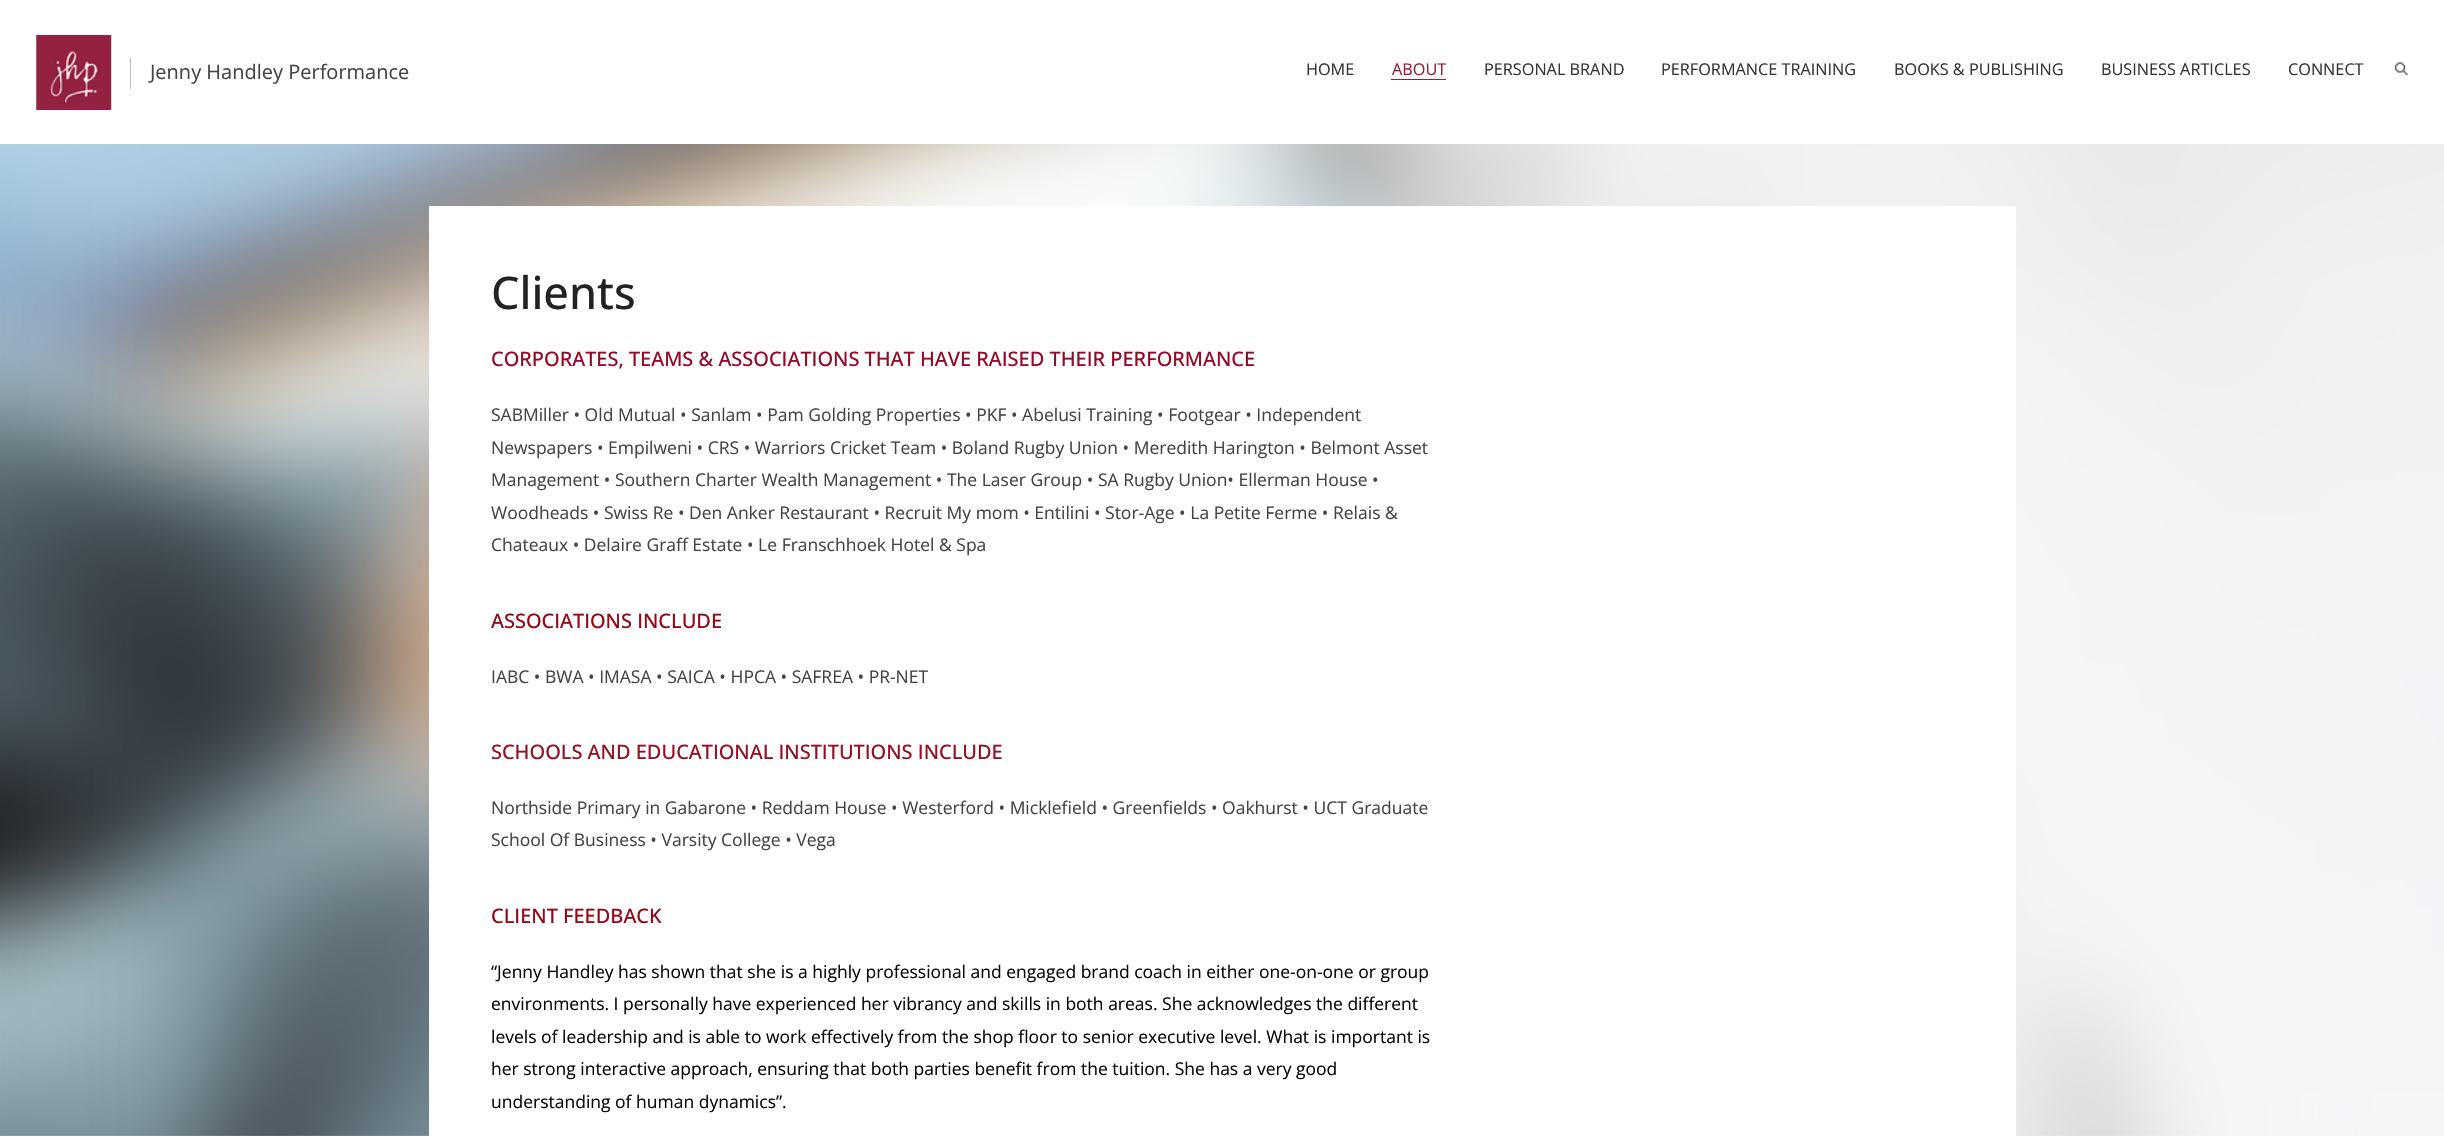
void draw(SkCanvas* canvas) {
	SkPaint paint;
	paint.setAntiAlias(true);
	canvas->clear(0xffffffff);
	canvas->drawImageRect(SkImages::DeferredFromEncodedData(SkData::MakeFromFileName("img1.png")), SkRect::MakeXYWH(36, 35, 76, 75), SkSamplingOptions());
	paint.setColor(0xffbebebe);
	canvas->drawRect(SkRect::MakeXYWH(130, 58, 1, 31), paint);
	SkFont f1(fontMgr->matchFamilyStyle("Open Sans", SkFontStyle::Normal()), 20);
	f1.setSubpixel(true);
	paint.setColor(0xff444444);
	canvas->drawString("Jenny Handley Performance", 150, 79, f1, paint);
	SkFont f2(fontMgr->matchFamilyStyle("Open Sans", SkFontStyle::Normal()), 16.25);
	f2.setSubpixel(true);
	paint.setColor(0xff343434);
	canvas->drawString("HOME", 1306, 75, f2, paint);
	paint.setColor(0xff951e32);
	canvas->drawString("ABOUT", 1392, 75, f2, paint);
	canvas->drawRect(SkRect::MakeXYWH(1391, 79, 55, 1), paint);
	paint.setColor(0xff343434);
	canvas->drawString("PERSONAL BRAND", 1484, 75, f2, paint);
	canvas->drawString("PERFORMANCE TRAINING", 1661, 75, f2, paint);
	canvas->drawString("BOOKS & PUBLISHING", 1894, 75, f2, paint);
	canvas->drawString("BUSINESS ARTICLES", 2101, 75, f2, paint);
	canvas->drawString("CONNECT", 2288, 75, f2, paint);
	canvas->drawImageRect(SkImages::DeferredFromEncodedData(SkData::MakeFromFileName("img2.png")), SkRect::MakeXYWH(2394, 62, 14, 14), SkSamplingOptions());
	canvas->drawImageRect(SkImages::DeferredFromEncodedData(SkData::MakeFromFileName("img3.png")), SkRect::MakeXYWH(0, 144, 2444, 992), SkSamplingOptions());
	paint.setColor(0xffffffff);
	canvas->drawRect(SkRect::MakeXYWH(429, 206, 1587, 930), paint);
	SkFont f3(fontMgr->matchFamilyStyle("Open Sans", SkFontStyle(500, SkFontStyle::kNormal_Width, SkFontStyle::kUpright_Slant)), 45);
	f3.setSubpixel(true);
	paint.setColor(0xff222222);
	canvas->drawString("Clients", 491, 309, f3, paint);
	SkFont f4(fontMgr->matchFamilyStyle("Open Sans", SkFontStyle(500, SkFontStyle::kNormal_Width, SkFontStyle::kUpright_Slant)), 20);
	f4.setSubpixel(true);
	paint.setColor(0xff940925);
	canvas->drawString("CORPORATES, TEAMS & ASSOCIATIONS THAT HAVE RAISED THEIR PERFORMANCE", 491, 366, f4, paint);
	SkFont f5(fontMgr->matchFamilyStyle("Open Sans", SkFontStyle::Normal()), 17.5);
	f5.setSubpixel(true);
	paint.setColor(0xff444444);
	canvas->drawString("SABMiller • Old Mutual • Sanlam • Pam Golding Properties • PKF • Abelusi Training • Footgear • Independent", 491, 421, f5, paint);
	canvas->drawString("Newspapers • Empilweni • CRS • Warriors Cricket Team • Boland Rugby Union • Meredith Harington • Belmont Asset", 491, 454, f5, paint);
	canvas->drawString("Management • Southern Charter Wealth Management • The Laser Group • SA Rugby Union• Ellerman House •", 491, 486, f5, paint);
	canvas->drawString("Woodheads • Swiss Re • Den Anker Restaurant • Recruit My mom • Entilini • Stor-Age • La Petite Ferme • Relais &", 491, 519, f5, paint);
	canvas->drawString("Chateaux • Delaire Graff Estate • Le Franschhoek Hotel & Spa", 491, 551, f5, paint);
	paint.setColor(0xff940816);
	canvas->drawString("ASSOCIATIONS INCLUDE", 491, 628, f4, paint);
	paint.setColor(0xff444444);
	canvas->drawString("IABC • BWA • IMASA • SAICA • HPCA • SAFREA • PR-NET", 491, 683, f5, paint);
	paint.setColor(0xff941022);
	canvas->drawString("SCHOOLS AND EDUCATIONAL INSTITUTIONS INCLUDE", 491, 759, f4, paint);
	paint.setColor(0xff444444);
	canvas->drawString("Northside Primary in Gabarone • Reddam House • Westerford • Micklefield • Greenfields • Oakhurst • UCT Graduate", 491, 814, f5, paint);
	canvas->drawString("School Of Business • Varsity College • Vega", 491, 846, f5, paint);
	paint.setColor(0xff940816);
	canvas->drawString("CLIENT FEEDBACK", 491, 923, f4, paint);
	paint.setColor(0xff090809);
	canvas->drawString("“Jenny Handley has shown that she is a highly professional and engaged brand coach in either one-on-one or group", 491, 978, f5, paint);
	canvas->drawString("environments. I personally have experienced her vibrancy and skills in both areas. She acknowledges the different", 491, 1010, f5, paint);
	canvas->drawString("levels of leadership and is able to work effectively from the shop floor to senior executive level. What is important is", 491, 1043, f5, paint);
	canvas->drawString("her strong interactive approach, ensuring that both parties benefit from the tuition. She has a very good", 491, 1075, f5, paint);
	canvas->drawString("understanding of human dynamics”.", 491, 1108, f5, paint);
}
